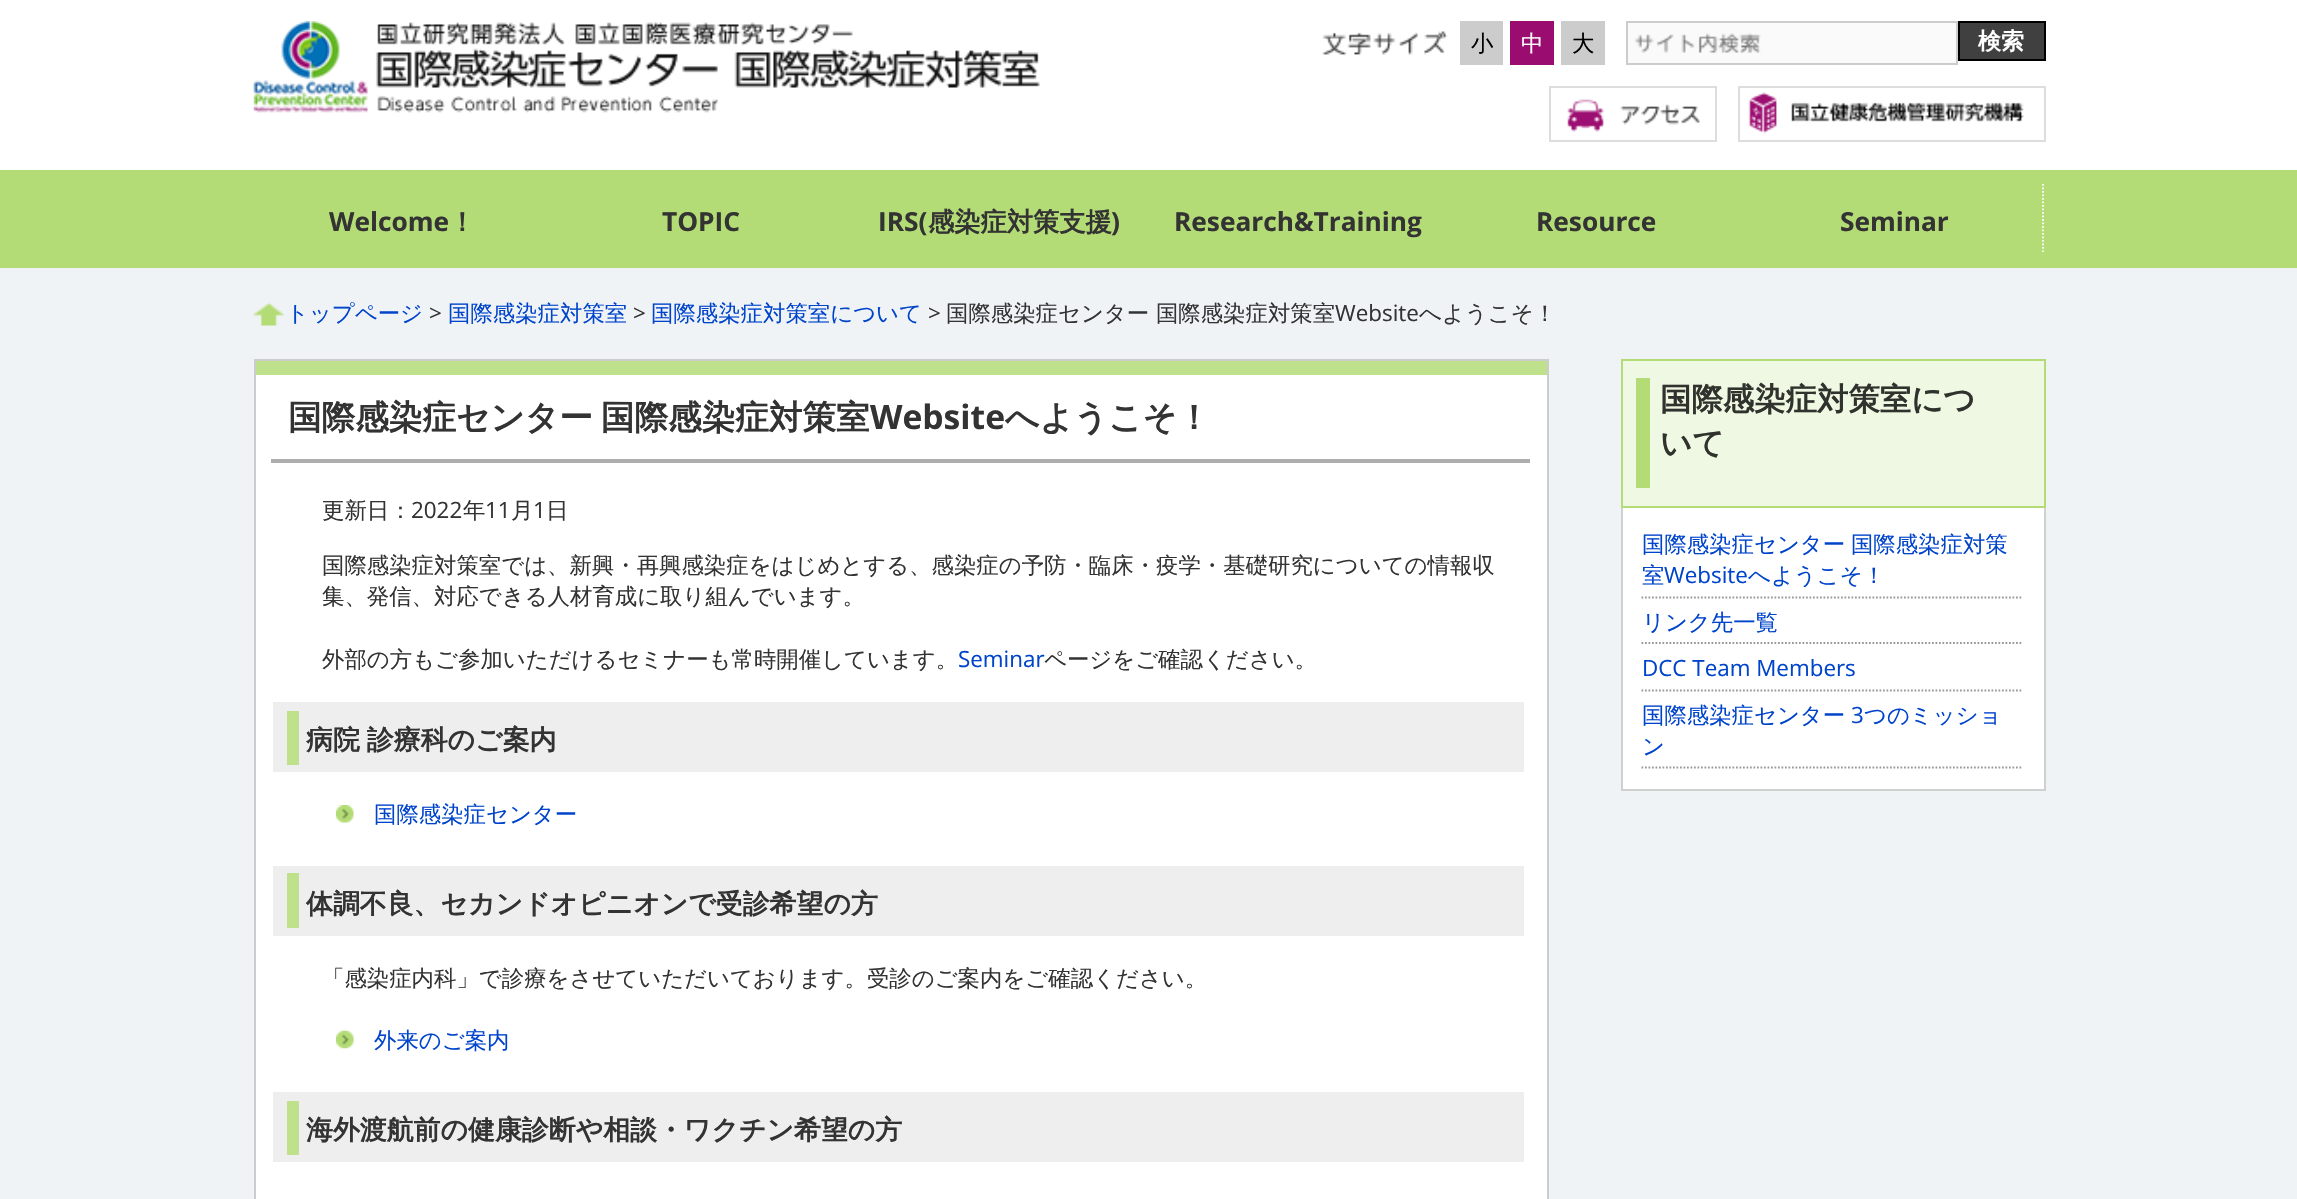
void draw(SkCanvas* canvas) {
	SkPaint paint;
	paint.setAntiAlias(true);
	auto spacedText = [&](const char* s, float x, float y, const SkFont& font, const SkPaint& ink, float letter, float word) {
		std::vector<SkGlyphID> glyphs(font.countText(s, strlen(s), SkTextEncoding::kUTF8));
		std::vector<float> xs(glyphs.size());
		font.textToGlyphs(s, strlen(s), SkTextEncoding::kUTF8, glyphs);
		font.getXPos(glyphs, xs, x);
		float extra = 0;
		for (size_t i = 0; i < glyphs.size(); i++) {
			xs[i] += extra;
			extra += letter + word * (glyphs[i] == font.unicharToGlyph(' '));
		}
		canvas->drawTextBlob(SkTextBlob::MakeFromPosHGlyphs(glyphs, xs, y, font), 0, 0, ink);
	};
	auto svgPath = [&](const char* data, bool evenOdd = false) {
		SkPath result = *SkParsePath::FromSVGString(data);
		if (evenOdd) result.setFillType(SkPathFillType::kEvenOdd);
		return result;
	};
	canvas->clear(0xffeff3f5);
	paint.setColor(0xffffffff);
	canvas->drawRect(SkRect::MakeXYWH(0, 0, 2297, 170), paint);
	canvas->drawImageRect(SkImages::DeferredFromEncodedData(SkData::MakeFromFileName("img1.png")), SkRect::MakeXYWH(253, 21, 787, 92), SkSamplingOptions());
	canvas->drawImageRect(SkImages::DeferredFromEncodedData(SkData::MakeFromFileName("img2.png")), SkRect::MakeXYWH(1322, 31, 126, 25), SkSamplingOptions());
	paint.setColor(0xffcccccc);
	canvas->drawRect(SkRect::MakeXYWH(1460, 21, 43, 44), paint);
	SkFont f1(fontMgr->matchFamilyStyle("WenQuanYi Zen Hei", SkFontStyle(500, SkFontStyle::kNormal_Width, SkFontStyle::kUpright_Slant)), 22.4);
	f1.setSubpixel(true);
	paint.setColor(0xff000000);
	canvas->drawString("小", 1471, 51, f1, paint);
	paint.setColor(0xff9a0c6f);
	canvas->drawRect(SkRect::MakeXYWH(1510, 21, 44, 44), paint);
	paint.setColor(0xffffffff);
	canvas->drawString("中", 1521, 51, f1, paint);
	paint.setColor(0xffcccccc);
	canvas->drawRect(SkRect::MakeXYWH(1561, 21, 44, 44), paint);
	paint.setColor(0xff000000);
	canvas->drawString("大", 1572, 51, f1, paint);
	paint.setColor(0xfffafafa);
	canvas->drawRect(SkRect::MakeXYWH(1628, 23, 328, 40), paint);
	canvas->drawImageRect(SkImages::DeferredFromEncodedData(SkData::MakeFromFileName("img3.png")), SkRect::MakeXYWH(1634, 33, 127, 20), SkSamplingOptions());
	paint.setStroke(true);
	paint.setStrokeWidth(2);
	paint.setColor(0xffcccccc);
	canvas->drawRect(SkRect::MakeXYWH(1627, 22, 330, 42), paint);
	paint.setStroke(false);
	paint.setColor(0xff404040);
	canvas->drawRect(SkRect::MakeXYWH(1959, 22, 86, 38), paint);
	paint.setStroke(true);
	paint.setColor(0xff000000);
	canvas->drawRect(SkRect::MakeXYWH(1959, 22, 86, 38), paint);
	SkFont f2(fontMgr->matchFamilyStyle("WenQuanYi Zen Hei", SkFontStyle::Bold()), 23);
	f2.setSubpixel(true);
	paint.setStroke(false);
	paint.setColor(0xffffffff);
	canvas->drawString("検索", 1978, 49, f2, paint);
	canvas->drawImageRect(SkImages::DeferredFromEncodedData(SkData::MakeFromFileName("img4.png")), SkRect::MakeXYWH(1567, 99, 133, 33), SkSamplingOptions());
	paint.setStroke(true);
	paint.setColor(0xffdddddd);
	canvas->drawRect(SkRect::MakeXYWH(1550, 87, 166, 54), paint);
	canvas->drawImageRect(SkImages::DeferredFromEncodedData(SkData::MakeFromFileName("img5.png")), SkRect::MakeXYWH(1748, 92, 276, 42), SkSamplingOptions());
	canvas->drawRect(SkRect::MakeXYWH(1739, 87, 306, 54), paint);
	paint.setStroke(false);
	paint.setColor(0xffb4dc76);
	canvas->drawRect(SkRect::MakeXYWH(0, 170, 2297, 98), paint);
	SkFont f3(fontMgr->matchFamilyStyle("Open Sans", SkFontStyle::Bold()), 26.25);
	f3.setSubpixel(true);
	paint.setColor(0xff333333);
	canvas->drawString("Welcome", 329, 231, f3, paint);
	SkFont f4(fontMgr->matchFamilyStyle("WenQuanYi Zen Hei", SkFontStyle::Bold()), 26.25);
	f4.setSubpixel(true);
	canvas->drawString("！", 449, 231, f4, paint);
	canvas->drawString("TOPIC", 662, 231, f3, paint);
	canvas->drawString("IRS(", 878, 231, f3, paint);
	canvas->drawString("感染症対策支援", 928, 231, f4, paint);
	canvas->drawString(")", 1111, 231, f3, paint);
	canvas->drawString("Research&Training", 1174, 231, f3, paint);
	canvas->drawString("Resource", 1536, 231, f3, paint);
	canvas->drawString("Seminar", 1840, 231, f3, paint);
	paint.setStroke(true);
	paint.setStrokeWidth(1.8);
	paint.setColor(0xffffffff);
	paint.setPathEffect(SkDashPathEffect::Make({{1.75f, 1.75f}}, 0));
	canvas->drawPath(svgPath("M2043 184V252"), paint);
	paint.setPathEffect(nullptr);
	canvas->drawImageRect(SkImages::DeferredFromEncodedData(SkData::MakeFromFileName("img6.png")), SkRect::MakeXYWH(253, 302, 31, 24), SkSamplingOptions());
	paint.setStroke(false);
	paint.setColor(0xff0044cc);
	canvas->drawString("トップページ", 286, 321, f1, paint);
	SkFont f5(fontMgr->matchFamilyStyle("Open Sans", SkFontStyle::Normal()), 22.4);
	f5.setSubpixel(true);
	paint.setColor(0xff333333);
	canvas->drawString(">", 429, 321, f5, paint);
	paint.setColor(0xff0044cc);
	canvas->drawString("国際感染症対策室", 448, 321, f1, paint);
	paint.setColor(0xff333333);
	canvas->drawString(">", 633, 321, f5, paint);
	paint.setColor(0xff0044cc);
	canvas->drawString("国際感染症対策室について", 651, 321, f1, paint);
	paint.setColor(0xff333333);
	canvas->drawString(">", 928, 321, f5, paint);
	canvas->drawString("国際感染症センター 国際感染症対策室", 946, 321, f1, paint);
	canvas->drawString("Website", 1335, 321, f5, paint);
	canvas->drawString("へようこそ！", 1419, 321, f1, paint);
	paint.setColor(0xffcccccc);
	canvas->drawRect(SkRect::MakeXYWH(254, 359, 1295, 2), paint);
	canvas->drawRect(SkRect::MakeXYWH(1547, 359, 2, 133), paint);
	canvas->drawRect(SkRect::MakeXYWH(254, 359, 2, 133), paint);
	paint.setColor(0xffbfe18b);
	canvas->drawRect(SkRect::MakeXYWH(256, 361, 1291, 14), paint);
	paint.setColor(0xffffffff);
	canvas->drawRect(SkRect::MakeXYWH(256, 375, 1291, 824), paint);
	SkFont f6(fontMgr->matchFamilyStyle("WenQuanYi Zen Hei", SkFontStyle::Bold()), 33.6);
	f6.setSubpixel(true);
	paint.setColor(0xff333333);
	spacedText("国際感染症センター 国際感染症対策室", 288, 429, f6, paint, 0, -2);
	SkFont f7(fontMgr->matchFamilyStyle("Open Sans", SkFontStyle::Bold()), 33.6);
	f7.setSubpixel(true);
	canvas->drawString("Website", 870, 429, f7, paint);
	canvas->drawString("へようこそ！", 1005, 429, f6, paint);
	paint.setColor(0xffadadad);
	canvas->drawRect(SkRect::MakeXYWH(271, 459, 1259, 4), paint);
	paint.setColor(0xffcccccc);
	canvas->drawRect(SkRect::MakeXYWH(1547, 492, 2, 707), paint);
	canvas->drawRect(SkRect::MakeXYWH(254, 492, 2, 707), paint);
	paint.setColor(0xff333333);
	canvas->drawString("更新日：", 322, 518, f1, paint);
	canvas->drawString("2022", 411, 518, f5, paint);
	canvas->drawString("年", 463, 518, f1, paint);
	canvas->drawString("11", 485, 518, f5, paint);
	canvas->drawString("月", 511, 518, f1, paint);
	canvas->drawString("1", 533, 518, f5, paint);
	canvas->drawString("日", 546, 518, f1, paint);
	canvas->drawString("国際感染症対策室では、新興・再興感染症をはじめとする、感染症の予防・臨床・疫学・基礎研究についての情報収", 322, 573, f1, paint);
	canvas->drawString("集、発信、対応できる人材育成に取り組んでいます。", 322, 604, f1, paint);
	canvas->drawString("外部の方もご参加いただけるセミナーも常時開催しています。", 322, 667, f1, paint);
	paint.setColor(0xff0044cc);
	canvas->drawString("Seminar", 958, 667, f5, paint);
	paint.setColor(0xff333333);
	canvas->drawString("ページをご確認ください。", 1044, 667, f1, paint);
	paint.setColor(0xffeeeeee);
	canvas->drawRect(SkRect::MakeXYWH(273, 702, 1251, 70), paint);
	paint.setColor(0xffbfe18b);
	canvas->drawRect(SkRect::MakeXYWH(287, 711, 12, 54), paint);
	SkFont f8(fontMgr->matchFamilyStyle("WenQuanYi Zen Hei", SkFontStyle::Bold()), 26.9);
	f8.setSubpixel(true);
	paint.setColor(0xff333333);
	spacedText("病院 診療科のご案内", 306, 749, f8, paint, 0, -1);
	canvas->drawImageRect(SkImages::DeferredFromEncodedData(SkData::MakeFromFileName("img7.png")), SkRect::MakeXYWH(336, 805, 18, 18), SkSamplingOptions());
	paint.setColor(0xff0044cc);
	canvas->drawString("国際感染症センター", 374, 822, f1, paint);
	paint.setColor(0xffeeeeee);
	canvas->drawRect(SkRect::MakeXYWH(273, 866, 1251, 70), paint);
	paint.setColor(0xffbfe18b);
	canvas->drawRect(SkRect::MakeXYWH(287, 873, 12, 55), paint);
	paint.setColor(0xff333333);
	canvas->drawString("体調不良、セカンドオピニオンで受診希望の方", 306, 913, f8, paint);
	canvas->drawString("「感染症内科」で診療をさせていただいております。受診のご案内をご確認ください。", 322, 986, f1, paint);
	canvas->drawImageRect(SkImages::DeferredFromEncodedData(SkData::MakeFromFileName("img8.png")), SkRect::MakeXYWH(336, 1030, 18, 19), SkSamplingOptions());
	paint.setColor(0xff0044cc);
	canvas->drawString("外来のご案内", 374, 1048, f1, paint);
	paint.setColor(0xffeeeeee);
	canvas->drawRect(SkRect::MakeXYWH(273, 1092, 1251, 70), paint);
	paint.setColor(0xffbfe18b);
	canvas->drawRect(SkRect::MakeXYWH(287, 1101, 12, 54), paint);
	paint.setColor(0xff333333);
	canvas->drawString("海外渡航前の健康診断や相談・ワクチン希望の方", 306, 1139, f8, paint);
	paint.setColor(0xffffffff);
	canvas->drawRect(SkRect::MakeXYWH(1623, 508, 421, 281), paint);
	paint.setStroke(true);
	paint.setStrokeWidth(2);
	paint.setColor(0xffcfd0d0);
	canvas->drawRect(SkRect::MakeXYWH(1622, 360, 423, 430), paint);
	paint.setStroke(false);
	paint.setColor(0xffeff8e2);
	canvas->drawRect(SkRect::MakeXYWH(1622, 360, 423, 147), paint);
	paint.setStroke(true);
	paint.setColor(0xffb4dc76);
	canvas->drawRect(SkRect::MakeXYWH(1622, 360, 423, 147), paint);
	paint.setStroke(false);
	canvas->drawRect(SkRect::MakeXYWH(1636, 378, 14, 110), paint);
	SkFont f9(fontMgr->matchFamilyStyle("WenQuanYi Zen Hei", SkFontStyle::Bold()), 31.4);
	f9.setSubpixel(true);
	paint.setColor(0xff30322d);
	canvas->drawString("国際感染症対策室につ", 1660, 410, f9, paint);
	canvas->drawString("いて", 1660, 454, f9, paint);
	paint.setStroke(true);
	paint.setStrokeWidth(1.8);
	paint.setColor(0xff999999);
	paint.setPathEffect(SkDashPathEffect::Make({{1.75f, 1.75f}}, 0));
	canvas->drawPath(svgPath("M1641.5 597.5H2023"), paint);
	paint.setPathEffect(nullptr);
	paint.setStroke(false);
	paint.setColor(0xff0044cc);
	spacedText("国際感染症センター 国際感染症対策", 1642, 552, f1, paint, 0, -1);
	canvas->drawString("室", 1642, 583, f1, paint);
	canvas->drawString("Website", 1664, 583, f5, paint);
	canvas->drawString("へようこそ！", 1748, 583, f1, paint);
	paint.setStroke(true);
	paint.setColor(0xff999999);
	paint.setPathEffect(SkDashPathEffect::Make({{1.75f, 1.75f}}, 0));
	canvas->drawPath(svgPath("M1641.5 643H2023"), paint);
	paint.setPathEffect(nullptr);
	paint.setStroke(false);
	paint.setColor(0xff0044cc);
	canvas->drawString("リンク先一覧", 1642, 630, f1, paint);
	paint.setStroke(true);
	paint.setColor(0xff999999);
	paint.setPathEffect(SkDashPathEffect::Make({{1.75f, 1.75f}}, 0));
	canvas->drawPath(svgPath("M1641.5 690.5H2023"), paint);
	paint.setPathEffect(nullptr);
	paint.setStroke(false);
	paint.setColor(0xff0044cc);
	canvas->drawString("DCC Team Members", 1642, 676, f5, paint);
	paint.setStroke(true);
	paint.setColor(0xff999999);
	paint.setPathEffect(SkDashPathEffect::Make({{1.75f, 1.75f}}, 0));
	canvas->drawPath(svgPath("M1641.5 767.5H2023"), paint);
	paint.setPathEffect(nullptr);
	paint.setStroke(false);
	paint.setColor(0xff0044cc);
	canvas->drawString("国際感染症センター", 1642, 723, f1, paint);
	canvas->drawString("3", 1851, 723, f5, paint);
	canvas->drawString("つのミッショ", 1864, 723, f1, paint);
	canvas->drawString("ン", 1642, 754, f1, paint);
}
